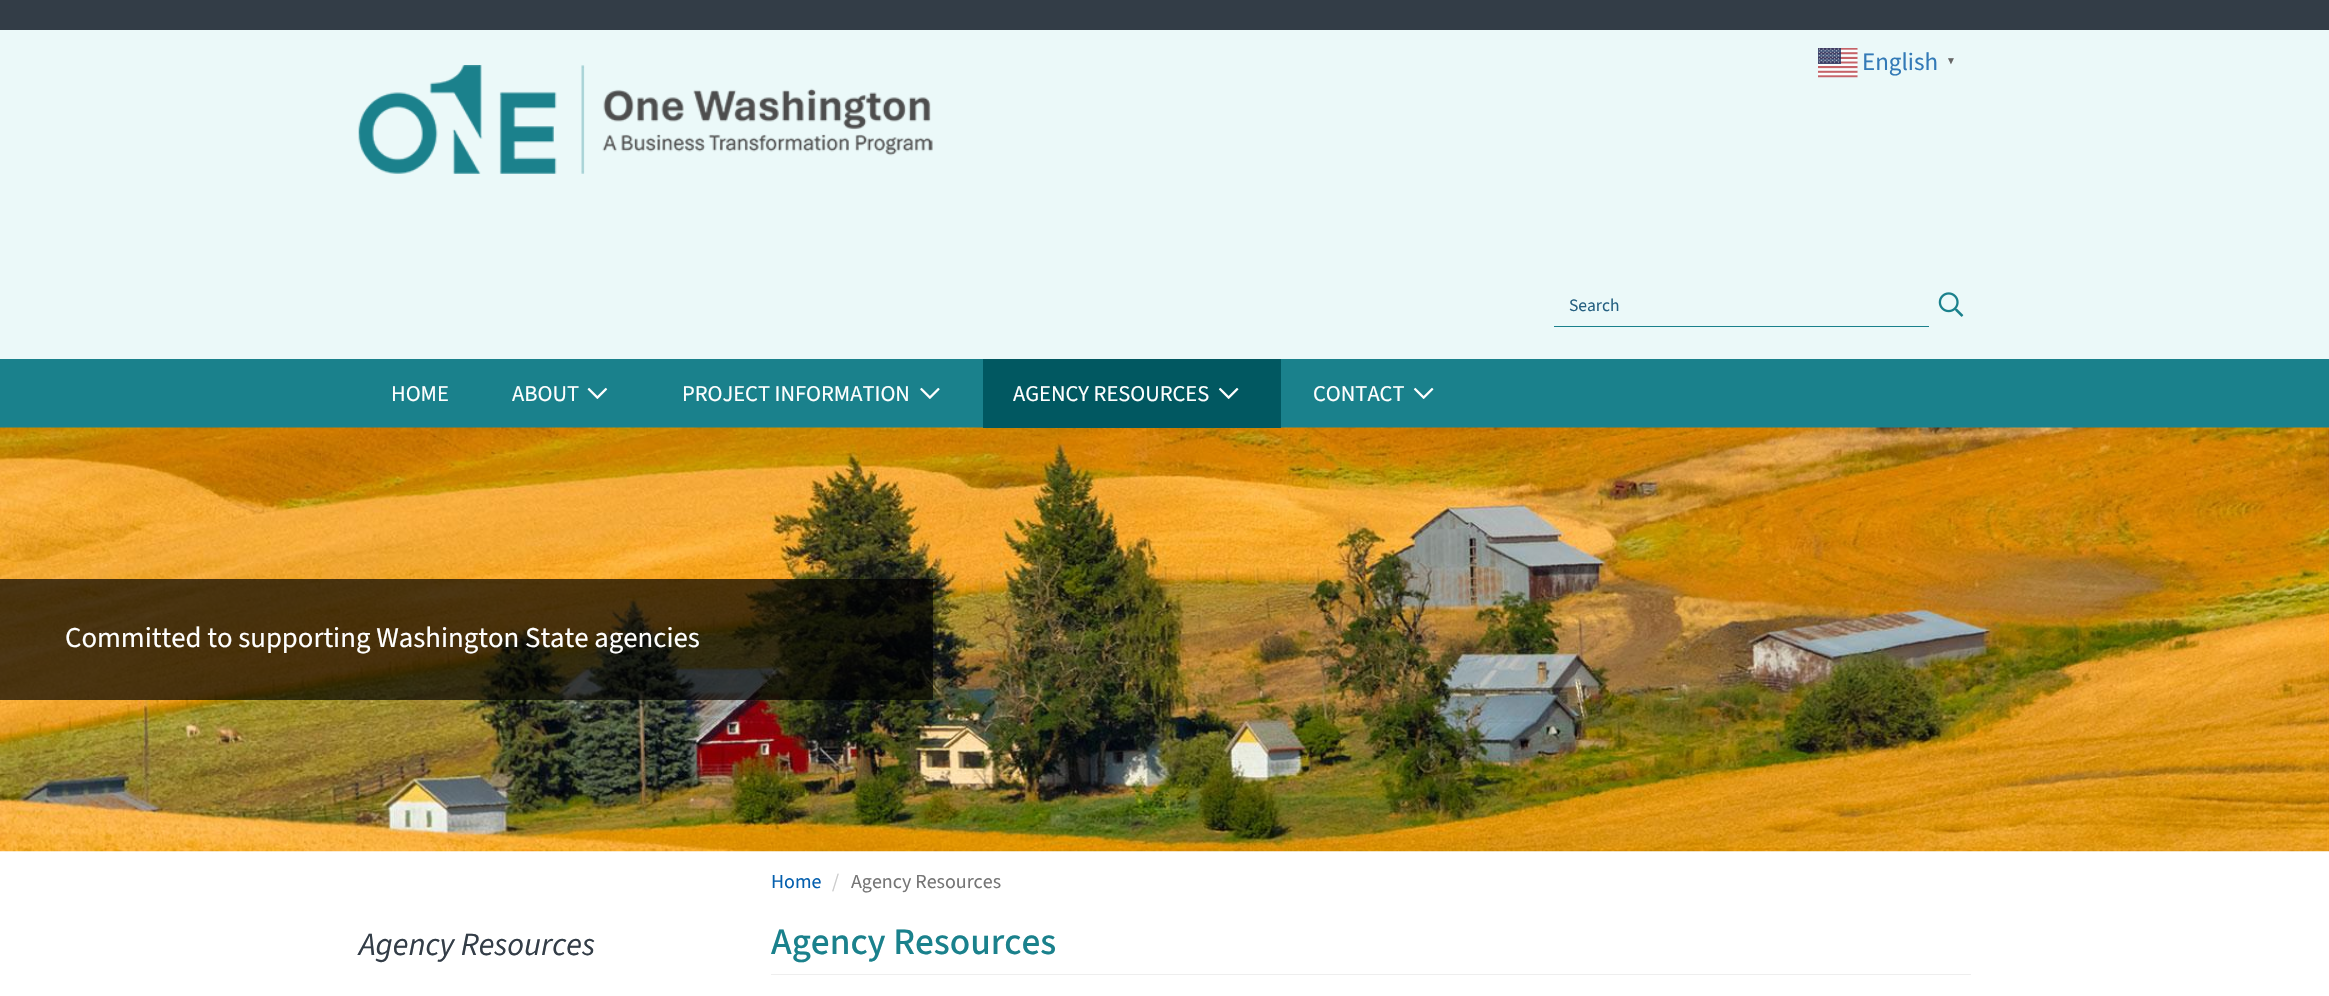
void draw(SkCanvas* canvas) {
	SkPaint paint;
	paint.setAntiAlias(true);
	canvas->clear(0xffffffff);
	paint.setColor(0xffebf9f9);
	canvas->drawRect(SkRect::MakeXYWH(0, 30, 2329, 329), paint);
	paint.setColor(0xff333d47);
	canvas->drawRect(SkRect::MakeXYWH(0, 0, 2329, 30), paint);
	canvas->drawImageRect(SkImages::DeferredFromEncodedData(SkData::MakeFromFileName("img1.png")), SkRect::MakeXYWH(358, 65, 575, 109), SkSamplingOptions());
	canvas->drawImageRect(SkImages::DeferredFromEncodedData(SkData::MakeFromFileName("img2.png")), SkRect::MakeXYWH(1818, 48, 40, 30), SkSamplingOptions());
	SkFont f1(fontMgr->matchFamilyStyle("Source Sans 3", SkFontStyle::Normal()), 25);
	f1.setSubpixel(true);
	paint.setColor(0xff337ab7);
	canvas->drawString("English", 1862, 70, f1, paint);
	SkFont f2(fontMgr->matchFamilyStyle("Liberation Serif", SkFontStyle::Bold()), 10);
	f2.setSubpixel(true);
	paint.setColor(0xff666666);
	canvas->drawString("▼", 1946, 64, f2, paint);
	paint.setColor(0xff1a818c);
	canvas->drawRect(SkRect::MakeXYWH(1554, 326, 375, 1), paint);
	SkFont f3(fontMgr->matchFamilyStyle("Source Sans 3", SkFontStyle::Normal()), 17.5);
	f3.setSubpixel(true);
	paint.setColor(0xff256081);
	canvas->drawString("Search", 1569, 311, f3, paint);
	canvas->drawImageRect(SkImages::DeferredFromEncodedData(SkData::MakeFromFileName("img3.png")), SkRect::MakeXYWH(1938, 292, 26, 25), SkSamplingOptions());
	paint.setColor(0xff1a818c);
	canvas->drawRect(SkRect::MakeXYWH(0, 359, 2329, 69), paint);
	SkFont f4(fontMgr->matchFamilyStyle("Source Sans 3", SkFontStyle::Normal()), 22.5);
	f4.setSubpixel(true);
	paint.setColor(0xffffffff);
	canvas->drawString("HOME", 391, 401, f4, paint);
	canvas->drawString("ABOUT", 512, 401, f4, paint);
	canvas->drawImageRect(SkImages::DeferredFromEncodedData(SkData::MakeFromFileName("img4.png")), SkRect::MakeXYWH(587, 387, 21, 12), SkSamplingOptions());
	canvas->drawString("PROJECT INFORMATION", 682, 401, f4, paint);
	canvas->drawImageRect(SkImages::DeferredFromEncodedData(SkData::MakeFromFileName("img5.png")), SkRect::MakeXYWH(920, 387, 20, 12), SkSamplingOptions());
	canvas->drawImageRect(SkImages::DeferredFromEncodedData(SkData::MakeFromFileName("img8.png")), SkRect::MakeXYWH(0, 427, 2329, 425), SkSamplingOptions());
	paint.setColor(0xff015861);
	canvas->drawRect(SkRect::MakeXYWH(983, 359, 298, 69), paint);
	paint.setColor(0xffffffff);
	canvas->drawString("AGENCY RESOURCES", 1013, 401, f4, paint);
	canvas->drawImageRect(SkImages::DeferredFromEncodedData(SkData::MakeFromFileName("img6.png")), SkRect::MakeXYWH(1218, 387, 21, 12), SkSamplingOptions());
	canvas->drawString("CONTACT", 1313, 401, f4, paint);
	canvas->drawImageRect(SkImages::DeferredFromEncodedData(SkData::MakeFromFileName("img7.png")), SkRect::MakeXYWH(1413, 387, 21, 12), SkSamplingOptions());
	paint.setColor(0xb3000000);
	canvas->drawRect(SkRect::MakeXYWH(0, 579, 933, 121), paint);
	SkFont f5(fontMgr->matchFamilyStyle("Source Sans 3", SkFontStyle::Normal()), 28.75);
	f5.setSubpixel(true);
	paint.setColor(0xffffffff);
	canvas->drawString("Committed to supporting Washington State agencies", 65, 647, f5, paint);
	SkFont f6(fontMgr->matchFamilyStyle("Source Sans 3", SkFontStyle::Italic()), 32.5);
	f6.setSubpixel(true);
	paint.setColor(0xff333d47);
	canvas->drawString("Agency Resources", 359, 955, f6, paint);
	SkFont f7(fontMgr->matchFamilyStyle("Source Sans 3", SkFontStyle::Normal()), 20);
	f7.setSubpixel(true);
	paint.setColor(0xff045fae);
	canvas->drawString("Home", 771, 888, f7, paint);
	paint.setColor(0xffcccccc);
	canvas->drawString("/", 832, 888, f7, paint);
	paint.setColor(0xff757575);
	canvas->drawString("Agency Resources", 851, 888, f7, paint);
	paint.setColor(0xffeeeeee);
	canvas->drawRect(SkRect::MakeXYWH(771, 974, 1200, 1), paint);
	SkFont f8(fontMgr->matchFamilyStyle("Source Sans 3", SkFontStyle(500, SkFontStyle::kNormal_Width, SkFontStyle::kUpright_Slant)), 37.5);
	f8.setSubpixel(true);
	paint.setColor(0xff1a818c);
	canvas->drawString("Agency Resources", 771, 954, f8, paint);
}
